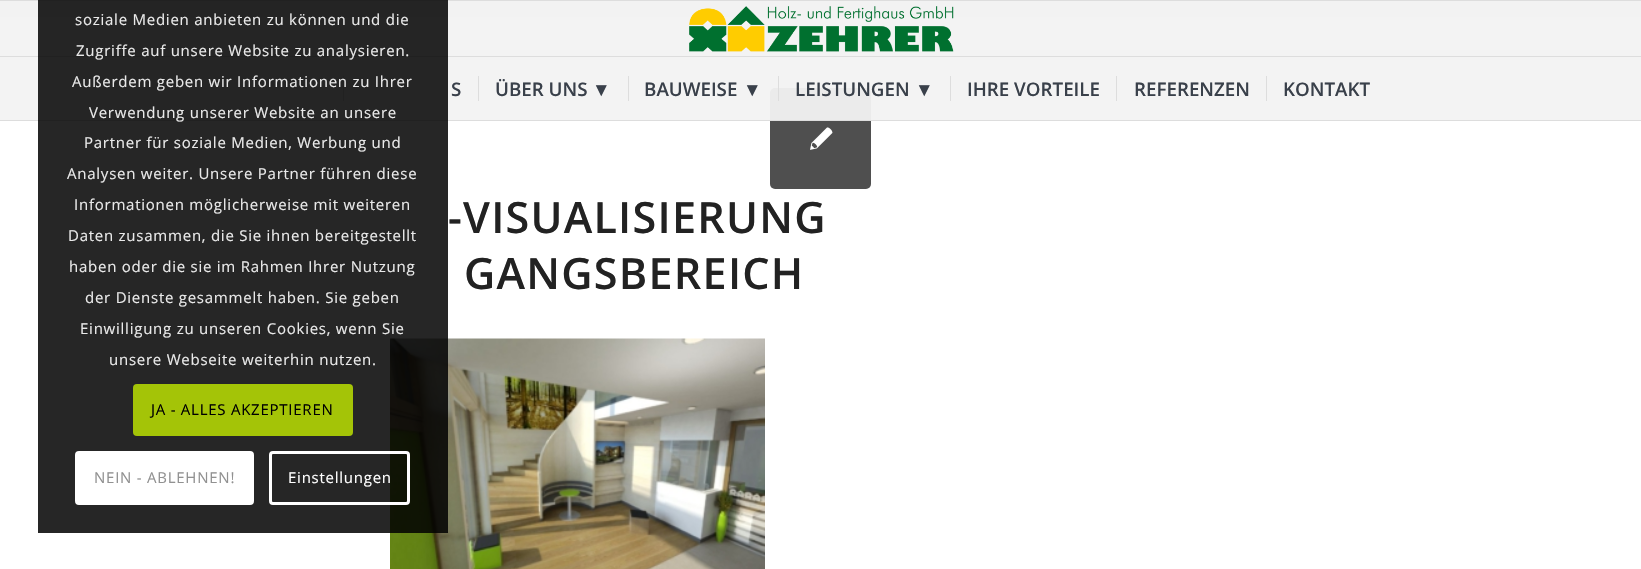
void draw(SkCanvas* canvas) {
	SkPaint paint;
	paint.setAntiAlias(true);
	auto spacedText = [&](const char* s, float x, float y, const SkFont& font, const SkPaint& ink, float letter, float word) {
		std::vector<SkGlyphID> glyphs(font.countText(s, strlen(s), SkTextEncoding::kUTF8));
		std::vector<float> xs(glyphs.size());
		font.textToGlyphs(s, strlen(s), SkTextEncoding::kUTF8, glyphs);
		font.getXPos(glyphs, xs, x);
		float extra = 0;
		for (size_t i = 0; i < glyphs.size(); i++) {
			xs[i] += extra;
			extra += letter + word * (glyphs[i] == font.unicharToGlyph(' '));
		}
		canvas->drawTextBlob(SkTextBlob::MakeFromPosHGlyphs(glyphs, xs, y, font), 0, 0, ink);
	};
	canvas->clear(0xfff2f2f2);
	paint.setColor(0xffffffff);
	canvas->drawRect(SkRect::MakeXYWH(0, 17, 1641, 552), paint);
	paint.setColor(0xffe1e1e1);
	canvas->drawRect(SkRect::MakeXYWH(0, 16, 1641, 1), paint);
	paint.setColor(0xff4f4f4f);
	canvas->drawRoundRect(SkRect::MakeXYWH(770, 88, 101, 101), 5, 5, paint);
	paint.setColor(0xf2f2f2f2);
	canvas->drawRect(SkRect::MakeXYWH(0, 16, 1641, 104), paint);
	paint.setColor(0xffdddddd);
	canvas->drawRect(SkRect::MakeXYWH(0, 0, 1641, 1), paint);
	canvas->drawRect(SkRect::MakeXYWH(0, 120, 1641, 1), paint);
	canvas->drawRect(SkRect::MakeXYWH(0, 56, 1641, 1), paint);
	canvas->drawRect(SkRect::MakeXYWH(343, 76, 1, 25), paint);
	canvas->drawImageRect(SkImages::DeferredFromEncodedData(SkData::MakeFromFileName("img3.png")), SkRect::MakeXYWH(390, 338, 375, 231), SkSamplingOptions());
	paint.setColor(0xd9000000);
	canvas->drawRect(SkRect::MakeXYWH(38, 0, 410, 533), paint);
	SkFont f1(fontMgr->matchFamilyStyle("Open Sans", SkFontStyle::Normal()), 15);
	f1.setSubpixel(true);
	paint.setColor(0xffe9e9e9);
	spacedText("soziale Medien anbieten zu können und die", 75, 25, f1, paint, 0.75, 0);
	spacedText("Zugriffe auf unsere Website zu analysieren.", 76, 56, f1, paint, 0.75, 0);
	spacedText("Außerdem geben wir Informationen zu Ihrer", 72, 87, f1, paint, 0.75, 0);
	spacedText("Verwendung unserer Website an unsere", 89, 118, f1, paint, 0.75, 0);
	spacedText("Partner für soziale Medien, Werbung und", 84, 148, f1, paint, 0.75, 0);
	spacedText("Analysen weiter. Unsere Partner führen diese", 67, 179, f1, paint, 0.75, 0);
	spacedText("Informationen möglicherweise mit weiteren", 74, 210, f1, paint, 0.75, 0);
	spacedText("Daten zusammen, die Sie ihnen bereitgestellt", 68, 241, f1, paint, 0.75, 0);
	spacedText("haben oder die sie im Rahmen Ihrer Nutzung", 69, 272, f1, paint, 0.75, 0);
	spacedText("der Dienste gesammelt haben. Sie geben", 85, 303, f1, paint, 0.75, 0);
	spacedText("Einwilligung zu unseren Cookies, wenn Sie", 80, 334, f1, paint, 0.75, 0);
	spacedText("unsere Webseite weiterhin nutzen.", 109, 365, f1, paint, 0.75, 0);
	paint.setColor(0xffa4c407);
	canvas->drawRoundRect(SkRect::MakeXYWH(133, 384, 220, 52), 4, 4, paint);
	paint.setColor(0xff000000);
	spacedText("JA - ALLES AKZEPTIEREN", 151, 415, f1, paint, 0.75, 0);
	paint.setColor(0xffffffff);
	canvas->drawRoundRect(SkRect::MakeXYWH(76.5, 452.5, 176, 51), 2.5, 2.5, paint);
	paint.setStroke(true);
	paint.setStrokeWidth(3);
	canvas->drawRoundRect(SkRect::MakeXYWH(76.5, 452.5, 176, 51), 2.5, 2.5, paint);
	paint.setStroke(false);
	paint.setColor(0xff919191);
	spacedText("NEIN - ABLEHNEN!", 94, 483, f1, paint, 0.75, 0);
	paint.setStroke(true);
	paint.setColor(0xffffffff);
	canvas->drawRoundRect(SkRect::MakeXYWH(270.5, 452.5, 138, 51), 2.5, 2.5, paint);
	paint.setStroke(false);
	spacedText("Einstellungen", 288, 483, f1, paint, 0.75, 0);
	canvas->drawImageRect(SkImages::DeferredFromEncodedData(SkData::MakeFromFileName("img1.png")), SkRect::MakeXYWH(689, 6, 265, 46), SkSamplingOptions());
	SkFont f2(fontMgr->matchFamilyStyle("Open Sans", SkFontStyle(600, SkFontStyle::kNormal_Width, SkFontStyle::kUpright_Slant)), 18.75);
	f2.setSubpixel(true);
	paint.setColor(0xff39404a);
	canvas->drawString("S", 451, 96, f2, paint);
	canvas->drawString("ÜBER UNS", 495, 96, f2, paint);
	paint.setColor(0xffdddddd);
	canvas->drawRect(SkRect::MakeXYWH(478, 76, 1, 25), paint);
	SkFont f3(fontMgr->matchFamilyStyle("Liberation Sans", SkFontStyle::Bold()), 18.75);
	f3.setSubpixel(true);
	paint.setColor(0xff39404a);
	canvas->drawString("▼", 592, 96, f3, paint);
	canvas->drawString("BAUWEISE", 644, 96, f2, paint);
	paint.setColor(0xffdddddd);
	canvas->drawRect(SkRect::MakeXYWH(628, 76, 1, 25), paint);
	paint.setColor(0xff39404a);
	canvas->drawString("▼", 743, 96, f3, paint);
	canvas->drawString("LEISTUNGEN", 795, 96, f2, paint);
	paint.setColor(0xffdddddd);
	canvas->drawRect(SkRect::MakeXYWH(778, 76, 1, 25), paint);
	paint.setColor(0xff39404a);
	canvas->drawString("▼", 915, 96, f3, paint);
	canvas->drawString("IHRE VORTEILE", 967, 96, f2, paint);
	paint.setColor(0xffdddddd);
	canvas->drawRect(SkRect::MakeXYWH(950, 76, 1, 25), paint);
	paint.setColor(0xff39404a);
	canvas->drawString("REFERENZEN", 1134, 96, f2, paint);
	paint.setColor(0xffdddddd);
	canvas->drawRect(SkRect::MakeXYWH(1116, 76, 1, 25), paint);
	paint.setColor(0xff39404a);
	canvas->drawString("KONTAKT", 1283, 96, f2, paint);
	paint.setColor(0xffdddddd);
	canvas->drawRect(SkRect::MakeXYWH(1266, 76, 1, 25), paint);
	canvas->drawImageRect(SkImages::DeferredFromEncodedData(SkData::MakeFromFileName("img2.png")), SkRect::MakeXYWH(810, 127, 23, 23), SkSamplingOptions());
	SkFont f4(fontMgr->matchFamilyStyle("Open Sans", SkFontStyle(600, SkFontStyle::kNormal_Width, SkFontStyle::kUpright_Slant)), 43.1);
	f4.setSubpixel(true);
	paint.setColor(0xff222222);
	spacedText("-VISUALISIERUNG", 448, 233, f4, paint, 1.25, 0);
	spacedText("GANGSBEREICH", 464, 289, f4, paint, 1.25, 0);
}
